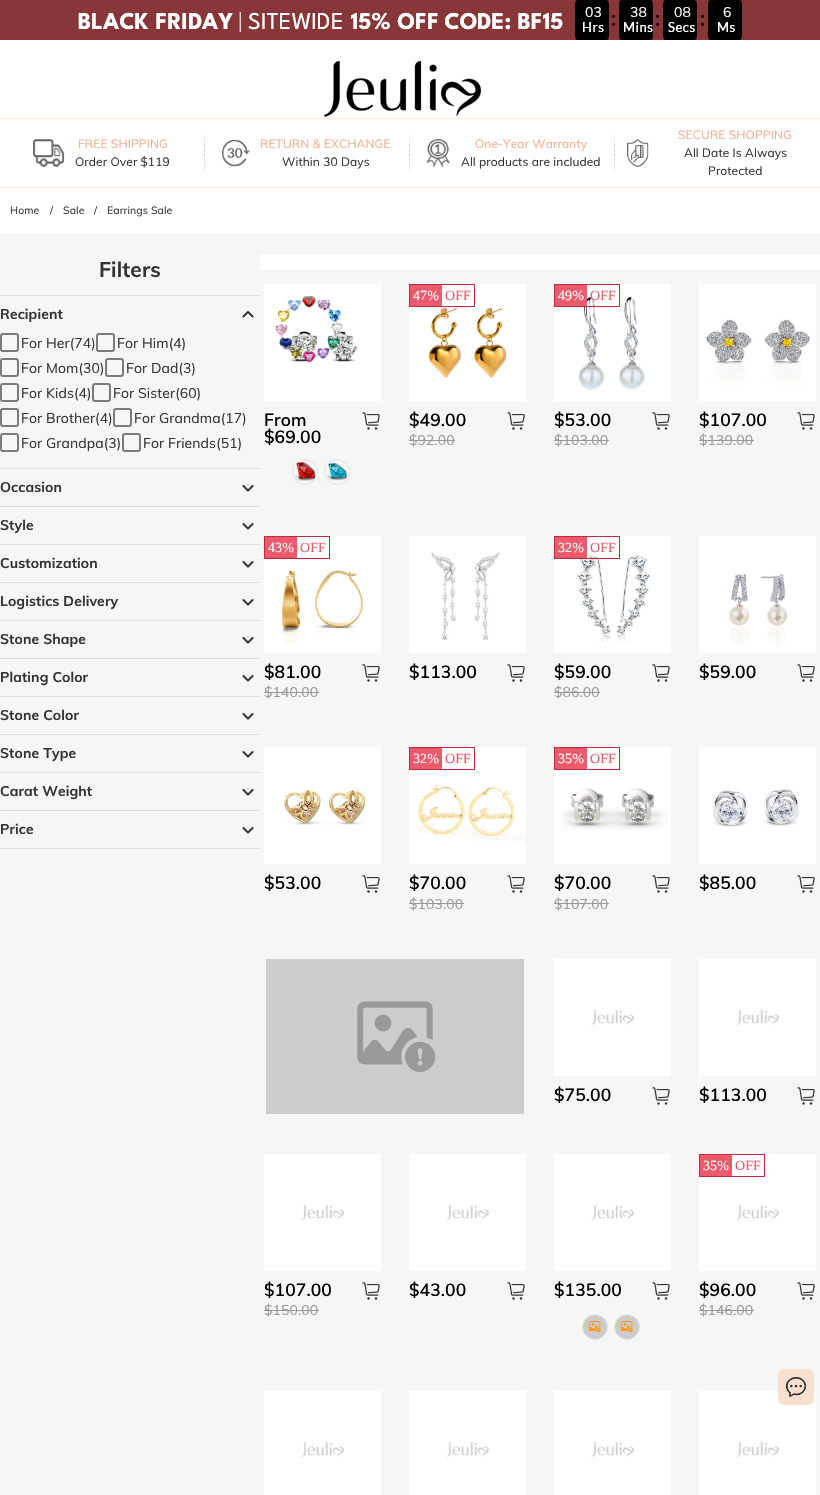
void draw(SkCanvas* canvas) {
	SkPaint paint;
	paint.setAntiAlias(true);
	auto spacedText = [&](const char* s, float x, float y, const SkFont& font, const SkPaint& ink, float letter, float word) {
		std::vector<SkGlyphID> glyphs(font.countText(s, strlen(s), SkTextEncoding::kUTF8));
		std::vector<float> xs(glyphs.size());
		font.textToGlyphs(s, strlen(s), SkTextEncoding::kUTF8, glyphs);
		font.getXPos(glyphs, xs, x);
		float extra = 0;
		for (size_t i = 0; i < glyphs.size(); i++) {
			xs[i] += extra;
			extra += letter + word * (glyphs[i] == font.unicharToGlyph(' '));
		}
		canvas->drawTextBlob(SkTextBlob::MakeFromPosHGlyphs(glyphs, xs, y, font), 0, 0, ink);
	};
	auto svgPath = [&](const char* data, bool evenOdd = false) {
		SkPath result = *SkParsePath::FromSVGString(data);
		if (evenOdd) result.setFillType(SkPathFillType::kEvenOdd);
		return result;
	};
	canvas->clear(0xffffffff);
	paint.setColor(0xff883638);
	canvas->drawRect(SkRect::MakeXYWH(0, 0, 820, 40), paint);
	canvas->drawImageRect(SkImages::DeferredFromEncodedData(SkData::MakeFromFileName("img1.png")), SkRect::MakeXYWH(74, 0, 672, 40), SkSamplingOptions());
	SkFont f1(fontMgr->matchFamilyStyle("Muli", SkFontStyle::Normal()), 14);
	f1.setSubpixel(true);
	paint.setColor(0xffffffff);
	spacedText("03", 585, 17, f1, paint, 0.1, 0);
	spacedText("38", 630, 17, f1, paint, 0.1, 0);
	spacedText("08", 674, 17, f1, paint, 0.1, 0);
	spacedText("6", 723, 17, f1, paint, 0.1, 0);
	canvas->drawImageRect(SkImages::DeferredFromEncodedData(SkData::MakeFromFileName("img2.png")), SkRect::MakeXYWH(324, 61, 157, 56), SkSamplingOptions());
	paint.setColor(0xfffce9da);
	canvas->drawRect(SkRect::MakeXYWH(0, 118, 820, 1), paint);
	canvas->drawRect(SkRect::MakeXYWH(0, 187, 820, 1), paint);
	paint.setStroke(true);
	paint.setStrokeWidth(1);
	paint.setColor(0xffcccccc);
	paint.setPathEffect(SkDashPathEffect::Make({{3, 1.71f}}, 0));
	canvas->drawPath(svgPath("M204.5 135V171"), paint);
	paint.setPathEffect(nullptr);
	canvas->drawImageRect(SkImages::DeferredFromEncodedData(SkData::MakeFromFileName("img3.png")), SkRect::MakeXYWH(33, 139, 32, 28), SkSamplingOptions());
	SkFont f2(fontMgr->matchFamilyStyle("Muli", SkFontStyle::Normal()), 12);
	f2.setSubpixel(true);
	paint.setStroke(false);
	paint.setColor(0xfff1af92);
	spacedText("FREE SHIPPING", 78, 148, f2, paint, 0.1, 0);
	paint.setColor(0xff333333);
	spacedText("Order Over $119", 75, 166, f2, paint, 0.1, 0);
	{
		const SkColor colors[] = {0xffefefef, 0x00efefef, 0xffefefef};
		const float stops[] = {0, 0.5, 1};
		const SkPoint ends[] = {{205, 135}, {205, 171}};
		paint.setShader(SkGradientShader::MakeLinear(ends, colors, stops, 3, SkTileMode::kClamp));
		paint.setAlpha(255);
	}
	canvas->drawRect(SkRect::MakeXYWH(204, 135, 1, 36), paint);
	paint.setStroke(true);
	paint.setShader(nullptr);
	paint.setColor(0xffcccccc);
	paint.setPathEffect(SkDashPathEffect::Make({{3, 1.71f}}, 0));
	canvas->drawPath(svgPath("M409.5 135V171"), paint);
	paint.setPathEffect(nullptr);
	canvas->drawImageRect(SkImages::DeferredFromEncodedData(SkData::MakeFromFileName("img4.png")), SkRect::MakeXYWH(222, 139, 28, 28), SkSamplingOptions());
	paint.setStroke(false);
	paint.setColor(0xfff1af92);
	spacedText("RETURN & EXCHANGE", 260, 148, f2, paint, 0.1, 0);
	paint.setColor(0xff333333);
	spacedText("Within 30 Days", 282, 166, f2, paint, 0.1, 0);
	{
		const SkColor colors[] = {0xffefefef, 0x00efefef, 0xffefefef};
		const float stops[] = {0, 0.5, 1};
		const SkPoint ends[] = {{410, 135}, {410, 171}};
		paint.setShader(SkGradientShader::MakeLinear(ends, colors, stops, 3, SkTileMode::kClamp));
		paint.setAlpha(255);
	}
	canvas->drawRect(SkRect::MakeXYWH(409, 135, 1, 36), paint);
	paint.setStroke(true);
	paint.setShader(nullptr);
	paint.setColor(0xffcccccc);
	paint.setPathEffect(SkDashPathEffect::Make({{3, 1.71f}}, 0));
	canvas->drawPath(svgPath("M614.5 135V171"), paint);
	paint.setPathEffect(nullptr);
	canvas->drawImageRect(SkImages::DeferredFromEncodedData(SkData::MakeFromFileName("img5.png")), SkRect::MakeXYWH(426, 139, 24, 28), SkSamplingOptions());
	paint.setStroke(false);
	paint.setColor(0xfff1af92);
	spacedText("One-Year Warranty", 475, 148, f2, paint, 0.1, 0);
	paint.setColor(0xff333333);
	spacedText("All products are included", 461, 166, f2, paint, 0.1, 0);
	{
		const SkColor colors[] = {0xffefefef, 0x00efefef, 0xffefefef};
		const float stops[] = {0, 0.5, 1};
		const SkPoint ends[] = {{615, 135}, {615, 171}};
		paint.setShader(SkGradientShader::MakeLinear(ends, colors, stops, 3, SkTileMode::kClamp));
		paint.setAlpha(255);
	}
	canvas->drawRect(SkRect::MakeXYWH(614, 135, 1, 36), paint);
	canvas->drawImageRect(SkImages::DeferredFromEncodedData(SkData::MakeFromFileName("img6.png")), SkRect::MakeXYWH(627, 139, 22, 28), SkSamplingOptions());
	paint.setShader(nullptr);
	paint.setColor(0xfff1af92);
	spacedText("SECURE SHOPPING", 678, 139, f2, paint, 0.1, 0);
	paint.setColor(0xff333333);
	spacedText("All Date Is Always", 684, 157, f2, paint, 0.1, 0);
	spacedText("Protected", 708, 175, f2, paint, 0.1, 0);
	SkFont f3(fontMgr->matchFamilyStyle("Muli", SkFontStyle::Normal()), 10.5);
	f3.setSubpixel(true);
	spacedText("Home", 10, 214, f3, paint, 0.1, 0);
	spacedText("/", 50, 214, f3, paint, 0.1, 0);
	spacedText("Sale", 63, 214, f3, paint, 0.1, 0);
	spacedText("/", 94, 214, f3, paint, 0.1, 0);
	spacedText("Earrings Sale", 107, 214, f3, paint, 0.1, 0);
	paint.setColor(0xfff6f6f6);
	canvas->drawRect(SkRect::MakeXYWH(0, 234, 820, 1261), paint);
	paint.setColor(0xffdddddd);
	canvas->drawRect(SkRect::MakeXYWH(0, 295, 260, 1), paint);
	SkFont f4(fontMgr->matchFamilyStyle("Muli", SkFontStyle::Bold()), 21);
	f4.setSubpixel(true);
	paint.setColor(0xff333333);
	spacedText("Filters", 99, 277, f4, paint, 0.1, 0);
	paint.setColor(0xffdddddd);
	canvas->drawRect(SkRect::MakeXYWH(0, 468, 260, 1), paint);
	SkFont f5(fontMgr->matchFamilyStyle("Muli", SkFontStyle::Bold()), 14);
	f5.setSubpixel(true);
	paint.setColor(0xff333333);
	spacedText("Recipient", 0, 319, f5, paint, 0.1, 0);
	canvas->drawImageRect(SkImages::DeferredFromEncodedData(SkData::MakeFromFileName("img7.png")), SkRect::MakeXYWH(242, 311, 12, 7), SkSamplingOptions());
	paint.setStroke(true);
	paint.setStrokeWidth(2);
	paint.setColor(0xff7b7b7b);
	canvas->drawRoundRect(SkRect::MakeXYWH(1, 334, 17, 17), 2, 2, paint);
	paint.setStroke(false);
	paint.setColor(0xff333333);
	spacedText("For Her(74)", 21, 348, f1, paint, 0.1, 0);
	paint.setStroke(true);
	paint.setColor(0xff7b7b7b);
	canvas->drawRoundRect(SkRect::MakeXYWH(97, 334, 17, 17), 2, 2, paint);
	paint.setStroke(false);
	paint.setColor(0xff333333);
	spacedText("For Him(4)", 117, 348, f1, paint, 0.1, 0);
	paint.setStroke(true);
	paint.setColor(0xff7b7b7b);
	canvas->drawRoundRect(SkRect::MakeXYWH(1, 359, 17, 17), 2, 2, paint);
	paint.setStroke(false);
	paint.setColor(0xff333333);
	spacedText("For Mom(30)", 21, 373, f1, paint, 0.1, 0);
	paint.setStroke(true);
	paint.setColor(0xff7b7b7b);
	canvas->drawRoundRect(SkRect::MakeXYWH(106, 359, 17, 17), 2, 2, paint);
	paint.setStroke(false);
	paint.setColor(0xff333333);
	spacedText("For Dad(3)", 126, 373, f1, paint, 0.1, 0);
	paint.setStroke(true);
	paint.setColor(0xff7b7b7b);
	canvas->drawRoundRect(SkRect::MakeXYWH(1, 384, 17, 17), 2, 2, paint);
	paint.setStroke(false);
	paint.setColor(0xff333333);
	spacedText("For Kids(4)", 21, 398, f1, paint, 0.1, 0);
	paint.setStroke(true);
	paint.setColor(0xff7b7b7b);
	canvas->drawRoundRect(SkRect::MakeXYWH(93, 384, 17, 17), 2, 2, paint);
	paint.setStroke(false);
	paint.setColor(0xff333333);
	spacedText("For Sister(60)", 113, 398, f1, paint, 0.1, 0);
	paint.setStroke(true);
	paint.setColor(0xff7b7b7b);
	canvas->drawRoundRect(SkRect::MakeXYWH(1, 409, 17, 17), 2, 2, paint);
	paint.setStroke(false);
	paint.setColor(0xff333333);
	spacedText("For Brother(4)", 21, 423, f1, paint, 0.1, 0);
	paint.setStroke(true);
	paint.setColor(0xff7b7b7b);
	canvas->drawRoundRect(SkRect::MakeXYWH(114, 409, 17, 17), 2, 2, paint);
	paint.setStroke(false);
	paint.setColor(0xff333333);
	spacedText("For Grandma(17)", 134, 423, f1, paint, 0.1, 0);
	paint.setStroke(true);
	paint.setColor(0xff7b7b7b);
	canvas->drawRoundRect(SkRect::MakeXYWH(1, 434, 17, 17), 2, 2, paint);
	paint.setStroke(false);
	paint.setColor(0xff333333);
	spacedText("For Grandpa(3)", 21, 448, f1, paint, 0.1, 0);
	paint.setStroke(true);
	paint.setColor(0xff7b7b7b);
	canvas->drawRoundRect(SkRect::MakeXYWH(123, 434, 17, 17), 2, 2, paint);
	paint.setStroke(false);
	paint.setColor(0xff333333);
	spacedText("For Friends(51)", 143, 448, f1, paint, 0.1, 0);
	paint.setColor(0xffdddddd);
	canvas->drawRect(SkRect::MakeXYWH(0, 506, 260, 1), paint);
	paint.setColor(0xff333333);
	spacedText("Occasion", 0, 492, f5, paint, 0.1, 0);
	canvas->drawImageRect(SkImages::DeferredFromEncodedData(SkData::MakeFromFileName("img8.png")), SkRect::MakeXYWH(242, 485, 12, 7), SkSamplingOptions());
	paint.setColor(0xffdddddd);
	canvas->drawRect(SkRect::MakeXYWH(0, 544, 260, 1), paint);
	paint.setColor(0xff333333);
	spacedText("Style", 0, 530, f5, paint, 0.1, 0);
	canvas->drawImageRect(SkImages::DeferredFromEncodedData(SkData::MakeFromFileName("img8.png")), SkRect::MakeXYWH(242, 523, 12, 7), SkSamplingOptions());
	paint.setColor(0xffdddddd);
	canvas->drawRect(SkRect::MakeXYWH(0, 582, 260, 1), paint);
	paint.setColor(0xff333333);
	spacedText("Customization", 0, 568, f5, paint, 0.1, 0);
	canvas->drawImageRect(SkImages::DeferredFromEncodedData(SkData::MakeFromFileName("img8.png")), SkRect::MakeXYWH(242, 561, 12, 7), SkSamplingOptions());
	paint.setColor(0xffdddddd);
	canvas->drawRect(SkRect::MakeXYWH(0, 620, 260, 1), paint);
	paint.setColor(0xff333333);
	spacedText("Logistics Delivery", 0, 606, f5, paint, 0.1, 0);
	canvas->drawImageRect(SkImages::DeferredFromEncodedData(SkData::MakeFromFileName("img8.png")), SkRect::MakeXYWH(242, 599, 12, 7), SkSamplingOptions());
	paint.setColor(0xffdddddd);
	canvas->drawRect(SkRect::MakeXYWH(0, 658, 260, 1), paint);
	paint.setColor(0xff333333);
	spacedText("Stone Shape", 0, 644, f5, paint, 0.1, 0);
	canvas->drawImageRect(SkImages::DeferredFromEncodedData(SkData::MakeFromFileName("img8.png")), SkRect::MakeXYWH(242, 637, 12, 7), SkSamplingOptions());
	paint.setColor(0xffdddddd);
	canvas->drawRect(SkRect::MakeXYWH(0, 696, 260, 1), paint);
	paint.setColor(0xff333333);
	spacedText("Plating Color", 0, 682, f5, paint, 0.1, 0);
	canvas->drawImageRect(SkImages::DeferredFromEncodedData(SkData::MakeFromFileName("img8.png")), SkRect::MakeXYWH(242, 675, 12, 7), SkSamplingOptions());
	paint.setColor(0xffdddddd);
	canvas->drawRect(SkRect::MakeXYWH(0, 734, 260, 1), paint);
	paint.setColor(0xff333333);
	spacedText("Stone Color", 0, 720, f5, paint, 0.1, 0);
	canvas->drawImageRect(SkImages::DeferredFromEncodedData(SkData::MakeFromFileName("img8.png")), SkRect::MakeXYWH(242, 713, 12, 7), SkSamplingOptions());
	paint.setColor(0xffdddddd);
	canvas->drawRect(SkRect::MakeXYWH(0, 772, 260, 1), paint);
	paint.setColor(0xff333333);
	spacedText("Stone Type", 0, 758, f5, paint, 0.1, 0);
	canvas->drawImageRect(SkImages::DeferredFromEncodedData(SkData::MakeFromFileName("img8.png")), SkRect::MakeXYWH(242, 751, 12, 7), SkSamplingOptions());
	paint.setColor(0xffdddddd);
	canvas->drawRect(SkRect::MakeXYWH(0, 810, 260, 1), paint);
	paint.setColor(0xff333333);
	spacedText("Carat Weight", 0, 796, f5, paint, 0.1, 0);
	canvas->drawImageRect(SkImages::DeferredFromEncodedData(SkData::MakeFromFileName("img8.png")), SkRect::MakeXYWH(242, 789, 12, 7), SkSamplingOptions());
	paint.setColor(0xffdddddd);
	canvas->drawRect(SkRect::MakeXYWH(0, 848, 260, 1), paint);
	paint.setColor(0xff333333);
	spacedText("Price", 0, 834, f5, paint, 0.1, 0);
	canvas->drawImageRect(SkImages::DeferredFromEncodedData(SkData::MakeFromFileName("img8.png")), SkRect::MakeXYWH(242, 827, 12, 7), SkSamplingOptions());
	paint.setColor(0xffffffff);
	canvas->drawRect(SkRect::MakeXYWH(260, 254, 560, 16), paint);
	canvas->drawImageRect(SkImages::DeferredFromEncodedData(SkData::MakeFromFileName("img9.png")), SkRect::MakeXYWH(264, 284, 117, 117), SkSamplingOptions());
	canvas->drawImageRect(SkImages::DeferredFromEncodedData(SkData::MakeFromFileName("img10.png")), SkRect::MakeXYWH(287, 331, 71, 31), SkSamplingOptions());
	canvas->drawImageRect(SkImages::DeferredFromEncodedData(SkData::MakeFromFileName("img11.png")), SkRect::MakeXYWH(275, 296, 68, 67), SkSamplingOptions());
	SkFont f6(fontMgr->matchFamilyStyle("Muli", SkFontStyle(600, SkFontStyle::kNormal_Width, SkFontStyle::kUpright_Slant)), 17.5);
	f6.setSubpixel(true);
	paint.setColor(0xff000000);
	spacedText("From", 264, 426, f6, paint, 0.1, 0);
	spacedText("$69.00", 264, 443, f6, paint, 0.1, 0);
	canvas->drawImageRect(SkImages::DeferredFromEncodedData(SkData::MakeFromFileName("img12.png")), SkRect::MakeXYWH(362, 412, 18, 18), SkSamplingOptions());
	paint.setStroke(true);
	paint.setStrokeWidth(1);
	paint.setColor(0xffe2e2e2);
	canvas->drawCircle(305, 472, 12.5, paint);
	canvas->drawImageRect(SkImages::DeferredFromEncodedData(SkData::MakeFromFileName("img13.png")), SkRect::MakeXYWH(294, 462, 22, 19), SkSamplingOptions());
	canvas->drawCircle(337, 472, 12.5, paint);
	canvas->drawImageRect(SkImages::DeferredFromEncodedData(SkData::MakeFromFileName("img14.png")), SkRect::MakeXYWH(326, 463, 21, 18), SkSamplingOptions());
	canvas->drawImageRect(SkImages::DeferredFromEncodedData(SkData::MakeFromFileName("img15.png")), SkRect::MakeXYWH(409, 284, 117, 117), SkSamplingOptions());
	canvas->drawImageRect(SkImages::DeferredFromEncodedData(SkData::MakeFromFileName("img16.png")), SkRect::MakeXYWH(428, 307, 79, 71), SkSamplingOptions());
	paint.setColor(0xffc02a40);
	canvas->drawRect(SkRect::MakeXYWH(409.5, 284.5, 65, 22), paint);
	paint.setStroke(false);
	paint.setColor(0xffed5a6c);
	canvas->drawRect(SkRect::MakeXYWH(410, 285, 32, 21), paint);
	SkFont f7(fontMgr->matchFamilyStyle("Liberation Serif", SkFontStyle::Normal()), 14);
	f7.setSubpixel(true);
	paint.setColor(0xffffffff);
	spacedText("47%", 413, 300, f7, paint, 0.1, 0);
	paint.setColor(0xffed5a6c);
	spacedText("OFF", 445, 300, f7, paint, 0.1, 0);
	paint.setColor(0xff000000);
	spacedText("$49.00", 409, 426, f6, paint, 0.1, 0);
	paint.setColor(0xff999999);
	spacedText("$92.00", 409, 445, f1, paint, 0.1, 0);
	canvas->drawRect(SkRect::MakeXYWH(409, 440, 46, 1), paint);
	canvas->drawImageRect(SkImages::DeferredFromEncodedData(SkData::MakeFromFileName("img12.png")), SkRect::MakeXYWH(507, 412, 18, 18), SkSamplingOptions());
	canvas->drawImageRect(SkImages::DeferredFromEncodedData(SkData::MakeFromFileName("img9.png")), SkRect::MakeXYWH(554, 284, 117, 117), SkSamplingOptions());
	canvas->drawImageRect(SkImages::DeferredFromEncodedData(SkData::MakeFromFileName("img17.png")), SkRect::MakeXYWH(578, 296, 67, 94), SkSamplingOptions());
	paint.setStroke(true);
	paint.setColor(0xffc02a40);
	canvas->drawRect(SkRect::MakeXYWH(554.5, 284.5, 65, 22), paint);
	paint.setStroke(false);
	paint.setColor(0xffed5a6c);
	canvas->drawRect(SkRect::MakeXYWH(555, 285, 32, 21), paint);
	paint.setColor(0xffffffff);
	spacedText("49%", 558, 300, f7, paint, 0.1, 0);
	paint.setColor(0xffed5a6c);
	spacedText("OFF", 590, 300, f7, paint, 0.1, 0);
	paint.setColor(0xff000000);
	spacedText("$53.00", 554, 426, f6, paint, 0.1, 0);
	paint.setColor(0xff999999);
	spacedText("$103.00", 554, 445, f1, paint, 0.1, 0);
	canvas->drawRect(SkRect::MakeXYWH(554, 440, 55, 1), paint);
	canvas->drawImageRect(SkImages::DeferredFromEncodedData(SkData::MakeFromFileName("img12.png")), SkRect::MakeXYWH(652, 412, 18, 18), SkSamplingOptions());
	canvas->drawImageRect(SkImages::DeferredFromEncodedData(SkData::MakeFromFileName("img9.png")), SkRect::MakeXYWH(699, 284, 117, 117), SkSamplingOptions());
	canvas->drawImageRect(SkImages::DeferredFromEncodedData(SkData::MakeFromFileName("img18.png")), SkRect::MakeXYWH(706, 319, 105, 66), SkSamplingOptions());
	paint.setColor(0xff000000);
	spacedText("$107.00", 699, 426, f6, paint, 0.1, 0);
	paint.setColor(0xff999999);
	spacedText("$139.00", 699, 445, f1, paint, 0.1, 0);
	canvas->drawRect(SkRect::MakeXYWH(699, 440, 55, 1), paint);
	canvas->drawImageRect(SkImages::DeferredFromEncodedData(SkData::MakeFromFileName("img12.png")), SkRect::MakeXYWH(797, 412, 18, 18), SkSamplingOptions());
	canvas->drawImageRect(SkImages::DeferredFromEncodedData(SkData::MakeFromFileName("img9.png")), SkRect::MakeXYWH(264, 536, 117, 117), SkSamplingOptions());
	canvas->drawImageRect(SkImages::DeferredFromEncodedData(SkData::MakeFromFileName("img19.png")), SkRect::MakeXYWH(281, 570, 82, 74), SkSamplingOptions());
	paint.setStroke(true);
	paint.setColor(0xffc02a40);
	canvas->drawRect(SkRect::MakeXYWH(264.5, 536.5, 65, 22), paint);
	paint.setStroke(false);
	paint.setColor(0xffed5a6c);
	canvas->drawRect(SkRect::MakeXYWH(265, 537, 32, 21), paint);
	paint.setColor(0xffffffff);
	spacedText("43%", 268, 552, f7, paint, 0.1, 0);
	paint.setColor(0xffed5a6c);
	spacedText("OFF", 300, 552, f7, paint, 0.1, 0);
	paint.setColor(0xff000000);
	spacedText("$81.00", 264, 678, f6, paint, 0.1, 0);
	paint.setColor(0xff999999);
	spacedText("$140.00", 264, 697, f1, paint, 0.1, 0);
	canvas->drawRect(SkRect::MakeXYWH(264, 692, 55, 1), paint);
	canvas->drawImageRect(SkImages::DeferredFromEncodedData(SkData::MakeFromFileName("img12.png")), SkRect::MakeXYWH(362, 664, 18, 18), SkSamplingOptions());
	canvas->drawImageRect(SkImages::DeferredFromEncodedData(SkData::MakeFromFileName("img15.png")), SkRect::MakeXYWH(409, 536, 117, 117), SkSamplingOptions());
	canvas->drawImageRect(SkImages::DeferredFromEncodedData(SkData::MakeFromFileName("img20.png")), SkRect::MakeXYWH(430, 552, 70, 88), SkSamplingOptions());
	paint.setColor(0xff000000);
	spacedText("$113.00", 409, 678, f6, paint, 0.1, 0);
	canvas->drawImageRect(SkImages::DeferredFromEncodedData(SkData::MakeFromFileName("img12.png")), SkRect::MakeXYWH(507, 664, 18, 18), SkSamplingOptions());
	canvas->drawImageRect(SkImages::DeferredFromEncodedData(SkData::MakeFromFileName("img9.png")), SkRect::MakeXYWH(554, 536, 117, 117), SkSamplingOptions());
	canvas->drawImageRect(SkImages::DeferredFromEncodedData(SkData::MakeFromFileName("img21.png")), SkRect::MakeXYWH(577, 555, 73, 88), SkSamplingOptions());
	paint.setStroke(true);
	paint.setColor(0xffc02a40);
	canvas->drawRect(SkRect::MakeXYWH(554.5, 536.5, 65, 22), paint);
	paint.setStroke(false);
	paint.setColor(0xffed5a6c);
	canvas->drawRect(SkRect::MakeXYWH(555, 537, 32, 21), paint);
	paint.setColor(0xffffffff);
	spacedText("32%", 558, 552, f7, paint, 0.1, 0);
	paint.setColor(0xffed5a6c);
	spacedText("OFF", 590, 552, f7, paint, 0.1, 0);
	paint.setColor(0xff000000);
	spacedText("$59.00", 554, 678, f6, paint, 0.1, 0);
	paint.setColor(0xff999999);
	spacedText("$86.00", 554, 697, f1, paint, 0.1, 0);
	canvas->drawRect(SkRect::MakeXYWH(554, 692, 46, 1), paint);
	canvas->drawImageRect(SkImages::DeferredFromEncodedData(SkData::MakeFromFileName("img12.png")), SkRect::MakeXYWH(652, 664, 18, 18), SkSamplingOptions());
	canvas->drawImageRect(SkImages::DeferredFromEncodedData(SkData::MakeFromFileName("img9.png")), SkRect::MakeXYWH(699, 536, 117, 117), SkSamplingOptions());
	canvas->drawImageRect(SkImages::DeferredFromEncodedData(SkData::MakeFromFileName("img22.png")), SkRect::MakeXYWH(729, 573, 58, 74), SkSamplingOptions());
	paint.setColor(0xff000000);
	spacedText("$59.00", 699, 678, f6, paint, 0.1, 0);
	canvas->drawImageRect(SkImages::DeferredFromEncodedData(SkData::MakeFromFileName("img12.png")), SkRect::MakeXYWH(797, 664, 18, 18), SkSamplingOptions());
	canvas->drawImageRect(SkImages::DeferredFromEncodedData(SkData::MakeFromFileName("img9.png")), SkRect::MakeXYWH(264, 747, 117, 117), SkSamplingOptions());
	canvas->drawImageRect(SkImages::DeferredFromEncodedData(SkData::MakeFromFileName("img23.png")), SkRect::MakeXYWH(284, 789, 81, 36), SkSamplingOptions());
	spacedText("$53.00", 264, 889, f6, paint, 0.1, 0);
	canvas->drawImageRect(SkImages::DeferredFromEncodedData(SkData::MakeFromFileName("img12.png")), SkRect::MakeXYWH(362, 875, 18, 18), SkSamplingOptions());
	canvas->drawImageRect(SkImages::DeferredFromEncodedData(SkData::MakeFromFileName("img15.png")), SkRect::MakeXYWH(409, 747, 117, 117), SkSamplingOptions());
	canvas->drawImageRect(SkImages::DeferredFromEncodedData(SkData::MakeFromFileName("img24.png")), SkRect::MakeXYWH(418, 784, 108, 58), SkSamplingOptions());
	paint.setStroke(true);
	paint.setColor(0xffc02a40);
	canvas->drawRect(SkRect::MakeXYWH(409.5, 747.5, 65, 22), paint);
	paint.setStroke(false);
	paint.setColor(0xffed5a6c);
	canvas->drawRect(SkRect::MakeXYWH(410, 748, 32, 21), paint);
	paint.setColor(0xffffffff);
	spacedText("32%", 413, 763, f7, paint, 0.1, 0);
	paint.setColor(0xffed5a6c);
	spacedText("OFF", 445, 763, f7, paint, 0.1, 0);
	paint.setColor(0xff000000);
	spacedText("$70.00", 409, 889, f6, paint, 0.1, 0);
	paint.setColor(0xff999999);
	spacedText("$103.00", 409, 909, f1, paint, 0.1, 0);
	canvas->drawRect(SkRect::MakeXYWH(409, 903, 55, 1), paint);
	canvas->drawImageRect(SkImages::DeferredFromEncodedData(SkData::MakeFromFileName("img12.png")), SkRect::MakeXYWH(507, 875, 18, 18), SkSamplingOptions());
	canvas->drawImageRect(SkImages::DeferredFromEncodedData(SkData::MakeFromFileName("img9.png")), SkRect::MakeXYWH(554, 747, 117, 117), SkSamplingOptions());
	canvas->drawImageRect(SkImages::DeferredFromEncodedData(SkData::MakeFromFileName("img25.png")), SkRect::MakeXYWH(561, 788, 107, 42), SkSamplingOptions());
	paint.setStroke(true);
	paint.setColor(0xffc02a40);
	canvas->drawRect(SkRect::MakeXYWH(554.5, 747.5, 65, 22), paint);
	paint.setStroke(false);
	paint.setColor(0xffed5a6c);
	canvas->drawRect(SkRect::MakeXYWH(555, 748, 32, 21), paint);
	paint.setColor(0xffffffff);
	spacedText("35%", 558, 763, f7, paint, 0.1, 0);
	paint.setColor(0xffed5a6c);
	spacedText("OFF", 590, 763, f7, paint, 0.1, 0);
	paint.setColor(0xff000000);
	spacedText("$70.00", 554, 889, f6, paint, 0.1, 0);
	paint.setColor(0xff999999);
	spacedText("$107.00", 554, 909, f1, paint, 0.1, 0);
	canvas->drawRect(SkRect::MakeXYWH(554, 903, 55, 1), paint);
	canvas->drawImageRect(SkImages::DeferredFromEncodedData(SkData::MakeFromFileName("img12.png")), SkRect::MakeXYWH(652, 875, 18, 18), SkSamplingOptions());
	canvas->drawImageRect(SkImages::DeferredFromEncodedData(SkData::MakeFromFileName("img9.png")), SkRect::MakeXYWH(699, 747, 117, 117), SkSamplingOptions());
	canvas->drawImageRect(SkImages::DeferredFromEncodedData(SkData::MakeFromFileName("img26.png")), SkRect::MakeXYWH(713, 789, 86, 38), SkSamplingOptions());
	paint.setColor(0xff000000);
	spacedText("$85.00", 699, 889, f6, paint, 0.1, 0);
	canvas->drawImageRect(SkImages::DeferredFromEncodedData(SkData::MakeFromFileName("img12.png")), SkRect::MakeXYWH(797, 875, 18, 18), SkSamplingOptions());
	paint.setColor(0xffcccccc);
	canvas->drawRect(SkRect::MakeXYWH(266, 959, 258, 155), paint);
	canvas->drawImageRect(SkImages::DeferredFromEncodedData(SkData::MakeFromFileName("img27.png")), SkRect::MakeXYWH(357, 1001, 79, 71), SkSamplingOptions());
	canvas->drawImageRect(SkImages::DeferredFromEncodedData(SkData::MakeFromFileName("img9.png")), SkRect::MakeXYWH(554, 959, 117, 117), SkSamplingOptions());
	paint.setColor(0xff000000);
	spacedText("$75.00", 554, 1101, f6, paint, 0.1, 0);
	canvas->drawImageRect(SkImages::DeferredFromEncodedData(SkData::MakeFromFileName("img12.png")), SkRect::MakeXYWH(652, 1087, 18, 18), SkSamplingOptions());
	canvas->drawImageRect(SkImages::DeferredFromEncodedData(SkData::MakeFromFileName("img9.png")), SkRect::MakeXYWH(699, 959, 117, 117), SkSamplingOptions());
	spacedText("$113.00", 699, 1101, f6, paint, 0.1, 0);
	canvas->drawImageRect(SkImages::DeferredFromEncodedData(SkData::MakeFromFileName("img12.png")), SkRect::MakeXYWH(797, 1087, 18, 18), SkSamplingOptions());
	canvas->drawImageRect(SkImages::DeferredFromEncodedData(SkData::MakeFromFileName("img9.png")), SkRect::MakeXYWH(264, 1154, 117, 117), SkSamplingOptions());
	spacedText("$107.00", 264, 1296, f6, paint, 0.1, 0);
	paint.setColor(0xff999999);
	spacedText("$150.00", 264, 1315, f1, paint, 0.1, 0);
	canvas->drawRect(SkRect::MakeXYWH(264, 1310, 55, 1), paint);
	canvas->drawImageRect(SkImages::DeferredFromEncodedData(SkData::MakeFromFileName("img12.png")), SkRect::MakeXYWH(362, 1282, 18, 18), SkSamplingOptions());
	canvas->drawImageRect(SkImages::DeferredFromEncodedData(SkData::MakeFromFileName("img15.png")), SkRect::MakeXYWH(409, 1154, 117, 117), SkSamplingOptions());
	paint.setColor(0xff000000);
	spacedText("$43.00", 409, 1296, f6, paint, 0.1, 0);
	canvas->drawImageRect(SkImages::DeferredFromEncodedData(SkData::MakeFromFileName("img12.png")), SkRect::MakeXYWH(507, 1282, 18, 18), SkSamplingOptions());
	canvas->drawImageRect(SkImages::DeferredFromEncodedData(SkData::MakeFromFileName("img9.png")), SkRect::MakeXYWH(554, 1154, 117, 117), SkSamplingOptions());
	spacedText("$135.00", 554, 1296, f6, paint, 0.1, 0);
	canvas->drawImageRect(SkImages::DeferredFromEncodedData(SkData::MakeFromFileName("img12.png")), SkRect::MakeXYWH(652, 1282, 18, 18), SkSamplingOptions());
	paint.setStroke(true);
	paint.setColor(0xffe2e2e2);
	canvas->drawCircle(595, 1327, 12.5, paint);
	paint.setStroke(false);
	paint.setColor(0xffcccccc);
	canvas->drawCircle(595, 1327, 12, paint);
	canvas->drawImageRect(SkImages::DeferredFromEncodedData(SkData::MakeFromFileName("img28.png")), SkRect::MakeXYWH(588, 1321, 13, 11), SkSamplingOptions());
	paint.setStroke(true);
	paint.setColor(0xffe2e2e2);
	canvas->drawCircle(627, 1327, 12.5, paint);
	paint.setStroke(false);
	paint.setColor(0xffcccccc);
	canvas->drawCircle(627, 1327, 12, paint);
	canvas->drawImageRect(SkImages::DeferredFromEncodedData(SkData::MakeFromFileName("img28.png")), SkRect::MakeXYWH(620, 1321, 13, 11), SkSamplingOptions());
	canvas->drawImageRect(SkImages::DeferredFromEncodedData(SkData::MakeFromFileName("img9.png")), SkRect::MakeXYWH(699, 1154, 117, 117), SkSamplingOptions());
	paint.setStroke(true);
	paint.setColor(0xffc02a40);
	canvas->drawRect(SkRect::MakeXYWH(699.5, 1154.5, 65, 22), paint);
	paint.setStroke(false);
	paint.setColor(0xffed5a6c);
	canvas->drawRect(SkRect::MakeXYWH(700, 1155, 32, 21), paint);
	paint.setColor(0xffffffff);
	spacedText("35%", 703, 1170, f7, paint, 0.1, 0);
	paint.setColor(0xffed5a6c);
	spacedText("OFF", 735, 1170, f7, paint, 0.1, 0);
	paint.setColor(0xff000000);
	spacedText("$96.00", 699, 1296, f6, paint, 0.1, 0);
	paint.setColor(0xff999999);
	spacedText("$146.00", 699, 1315, f1, paint, 0.1, 0);
	canvas->drawRect(SkRect::MakeXYWH(699, 1310, 55, 1), paint);
	canvas->drawImageRect(SkImages::DeferredFromEncodedData(SkData::MakeFromFileName("img12.png")), SkRect::MakeXYWH(797, 1282, 18, 18), SkSamplingOptions());
	canvas->drawImageRect(SkImages::DeferredFromEncodedData(SkData::MakeFromFileName("img29.png")), SkRect::MakeXYWH(264, 1391, 117, 104), SkSamplingOptions());
	canvas->drawImageRect(SkImages::DeferredFromEncodedData(SkData::MakeFromFileName("img30.png")), SkRect::MakeXYWH(409, 1391, 117, 104), SkSamplingOptions());
	canvas->drawImageRect(SkImages::DeferredFromEncodedData(SkData::MakeFromFileName("img29.png")), SkRect::MakeXYWH(554, 1391, 117, 104), SkSamplingOptions());
	canvas->drawImageRect(SkImages::DeferredFromEncodedData(SkData::MakeFromFileName("img29.png")), SkRect::MakeXYWH(699, 1391, 117, 104), SkSamplingOptions());
	paint.setColor(0xfff9dfcd);
	canvas->drawRoundRect(SkRect::MakeXYWH(778, 1369, 36, 36), 6, 6, paint);
	canvas->drawImageRect(SkImages::DeferredFromEncodedData(SkData::MakeFromFileName("img31.png")), SkRect::MakeXYWH(786, 1377, 20, 20), SkSamplingOptions());
}
